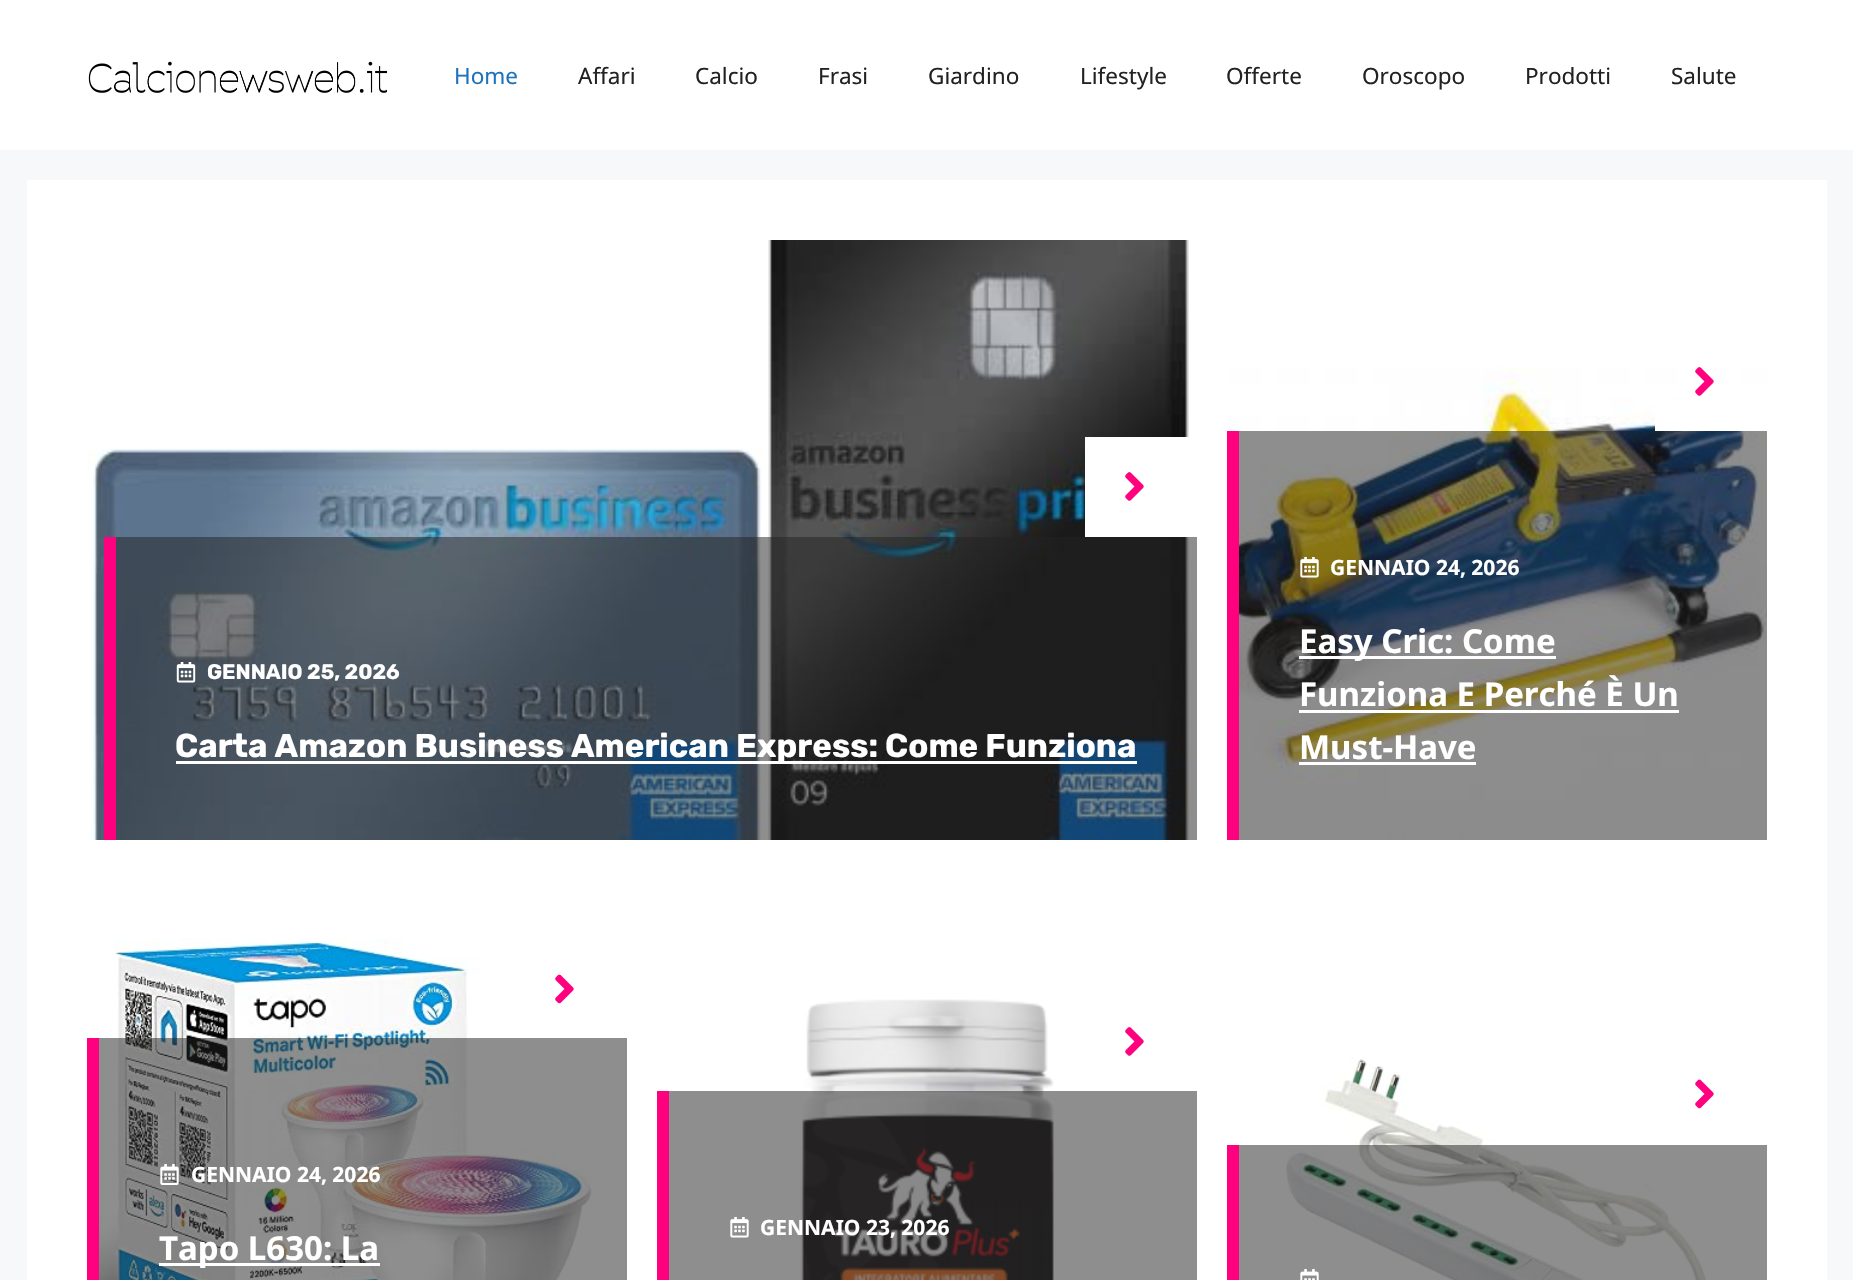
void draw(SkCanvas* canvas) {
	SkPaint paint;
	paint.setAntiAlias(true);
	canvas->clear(0xfff7f8f9);
	paint.setColor(0xffffffff);
	canvas->drawRect(SkRect::MakeXYWH(0, 0, 1853, 150), paint);
	canvas->drawImageRect(SkImages::DeferredFromEncodedData(SkData::MakeFromFileName("img1.png")), SkRect::MakeXYWH(88, 61, 299, 32), SkSamplingOptions());
	SkFont f1(fontMgr->matchFamilyStyle("Noto Sans", SkFontStyle::Normal()), 22.5);
	f1.setSubpixel(true);
	paint.setColor(0xff1e73be);
	canvas->drawString("Home", 454, 84, f1, paint);
	paint.setColor(0xff222222);
	canvas->drawString("Affari", 578, 84, f1, paint);
	canvas->drawString("Calcio", 695, 84, f1, paint);
	canvas->drawString("Frasi", 818, 84, f1, paint);
	canvas->drawString("Giardino", 928, 84, f1, paint);
	canvas->drawString("Lifestyle", 1080, 84, f1, paint);
	canvas->drawString("Offerte", 1226, 84, f1, paint);
	canvas->drawString("Oroscopo", 1362, 84, f1, paint);
	canvas->drawString("Prodotti", 1525, 84, f1, paint);
	canvas->drawString("Salute", 1671, 84, f1, paint);
	paint.setColor(0xffffffff);
	canvas->drawRect(SkRect::MakeXYWH(27, 180, 1800, 1100), paint);
	canvas->drawImageRect(SkImages::DeferredFromEncodedData(SkData::MakeFromFileName("img2.png")), SkRect::MakeXYWH(87, 240, 1102, 600), SkSamplingOptions());
	canvas->drawRect(SkRect::MakeXYWH(1085, 437, 104, 100), paint);
	canvas->drawImageRect(SkImages::DeferredFromEncodedData(SkData::MakeFromFileName("img3.png")), SkRect::MakeXYWH(1125, 472, 19, 29), SkSamplingOptions());
	paint.setColor(0x82212121);
	canvas->drawRect(SkRect::MakeXYWH(116, 537, 1081, 303), paint);
	paint.setColor(0xffff007e);
	canvas->drawRect(SkRect::MakeXYWH(104, 537, 12, 303), paint);
	canvas->drawImageRect(SkImages::DeferredFromEncodedData(SkData::MakeFromFileName("img4.png")), SkRect::MakeXYWH(176, 662, 20, 21), SkSamplingOptions());
	SkFont f2(fontMgr->matchFamilyStyle("Rubik", SkFontStyle::Bold()), 21);
	f2.setSubpixel(true);
	paint.setColor(0xffffffff);
	canvas->drawString("GENNAIO 25, 2026", 207, 679, f2, paint);
	canvas->drawRect(SkRect::MakeXYWH(176, 761, 961, 3), paint);
	SkFont f3(fontMgr->matchFamilyStyle("Rubik", SkFontStyle::Bold()), 33);
	f3.setSubpixel(true);
	canvas->drawString("Carta Amazon Business American Express: Come Funziona", 175, 757, f3, paint);
	canvas->drawImageRect(SkImages::DeferredFromEncodedData(SkData::MakeFromFileName("img5.png")), SkRect::MakeXYWH(1227, 367, 540, 473), SkSamplingOptions());
	canvas->drawRect(SkRect::MakeXYWH(1655, 399, 112, 32), paint);
	canvas->drawImageRect(SkImages::DeferredFromEncodedData(SkData::MakeFromFileName("img3.png")), SkRect::MakeXYWH(1695, 367, 19, 29), SkSamplingOptions());
	paint.setColor(0x82212121);
	canvas->drawRect(SkRect::MakeXYWH(1239, 431, 528, 409), paint);
	paint.setColor(0xffff007e);
	canvas->drawRect(SkRect::MakeXYWH(1227, 431, 12, 409), paint);
	canvas->drawImageRect(SkImages::DeferredFromEncodedData(SkData::MakeFromFileName("img6.png")), SkRect::MakeXYWH(1300, 557, 19, 21), SkSamplingOptions());
	SkFont f4(fontMgr->matchFamilyStyle("Noto Sans", SkFontStyle::Bold()), 21);
	f4.setSubpixel(true);
	paint.setColor(0xffffffff);
	canvas->drawString("GENNAIO 24, 2026", 1330, 575, f4, paint);
	canvas->drawRect(SkRect::MakeXYWH(1299, 656, 257, 3), paint);
	SkFont f5(fontMgr->matchFamilyStyle("Noto Sans", SkFontStyle::Bold()), 33);
	f5.setSubpixel(true);
	canvas->drawString("Easy Cric: Come", 1299, 653, f5, paint);
	canvas->drawString("Funziona E Perché È Un", 1299, 706, f5, paint);
	canvas->drawRect(SkRect::MakeXYWH(1299, 710, 380, 3), paint);
	canvas->drawString("Must-Have", 1299, 759, f5, paint);
	canvas->drawRect(SkRect::MakeXYWH(1299, 762, 177, 3), paint);
	canvas->drawImageRect(SkImages::DeferredFromEncodedData(SkData::MakeFromFileName("img7.png")), SkRect::MakeXYWH(87, 938, 505, 342), SkSamplingOptions());
	canvas->drawImageRect(SkImages::DeferredFromEncodedData(SkData::MakeFromFileName("img8.png")), SkRect::MakeXYWH(555, 974, 19, 30), SkSamplingOptions());
	paint.setColor(0x82212121);
	canvas->drawRect(SkRect::MakeXYWH(99, 1038, 528, 242), paint);
	paint.setColor(0xffff007e);
	canvas->drawRect(SkRect::MakeXYWH(87, 1038, 12, 242), paint);
	canvas->drawImageRect(SkImages::DeferredFromEncodedData(SkData::MakeFromFileName("img9.png")), SkRect::MakeXYWH(160, 1164, 19, 21), SkSamplingOptions());
	paint.setColor(0xffffffff);
	canvas->drawString("GENNAIO 24, 2026", 191, 1182, f4, paint);
	canvas->drawRect(SkRect::MakeXYWH(159, 1263, 221, 3), paint);
	canvas->drawString("Tapo L630: La", 159, 1260, f5, paint);
	canvas->drawImageRect(SkImages::DeferredFromEncodedData(SkData::MakeFromFileName("img10.png")), SkRect::MakeXYWH(800, 999, 254, 281), SkSamplingOptions());
	canvas->drawImageRect(SkImages::DeferredFromEncodedData(SkData::MakeFromFileName("img3.png")), SkRect::MakeXYWH(1125, 1027, 19, 29), SkSamplingOptions());
	paint.setColor(0x82212121);
	canvas->drawRect(SkRect::MakeXYWH(669, 1091, 528, 189), paint);
	paint.setColor(0xffff007e);
	canvas->drawRect(SkRect::MakeXYWH(657, 1091, 12, 189), paint);
	canvas->drawImageRect(SkImages::DeferredFromEncodedData(SkData::MakeFromFileName("img11.png")), SkRect::MakeXYWH(730, 1217, 19, 21), SkSamplingOptions());
	paint.setColor(0xffffffff);
	canvas->drawString("GENNAIO 23, 2026", 760, 1235, f4, paint);
	canvas->drawImageRect(SkImages::DeferredFromEncodedData(SkData::MakeFromFileName("img12.png")), SkRect::MakeXYWH(1286, 1057, 420, 223), SkSamplingOptions());
	canvas->drawImageRect(SkImages::DeferredFromEncodedData(SkData::MakeFromFileName("img8.png")), SkRect::MakeXYWH(1695, 1079, 19, 30), SkSamplingOptions());
	paint.setColor(0x82212121);
	canvas->drawRect(SkRect::MakeXYWH(1239, 1145, 528, 135), paint);
	paint.setColor(0xffff007e);
	canvas->drawRect(SkRect::MakeXYWH(1227, 1145, 12, 135), paint);
	canvas->drawImageRect(SkImages::DeferredFromEncodedData(SkData::MakeFromFileName("img13.png")), SkRect::MakeXYWH(1300, 1269, 19, 11), SkSamplingOptions());
}
